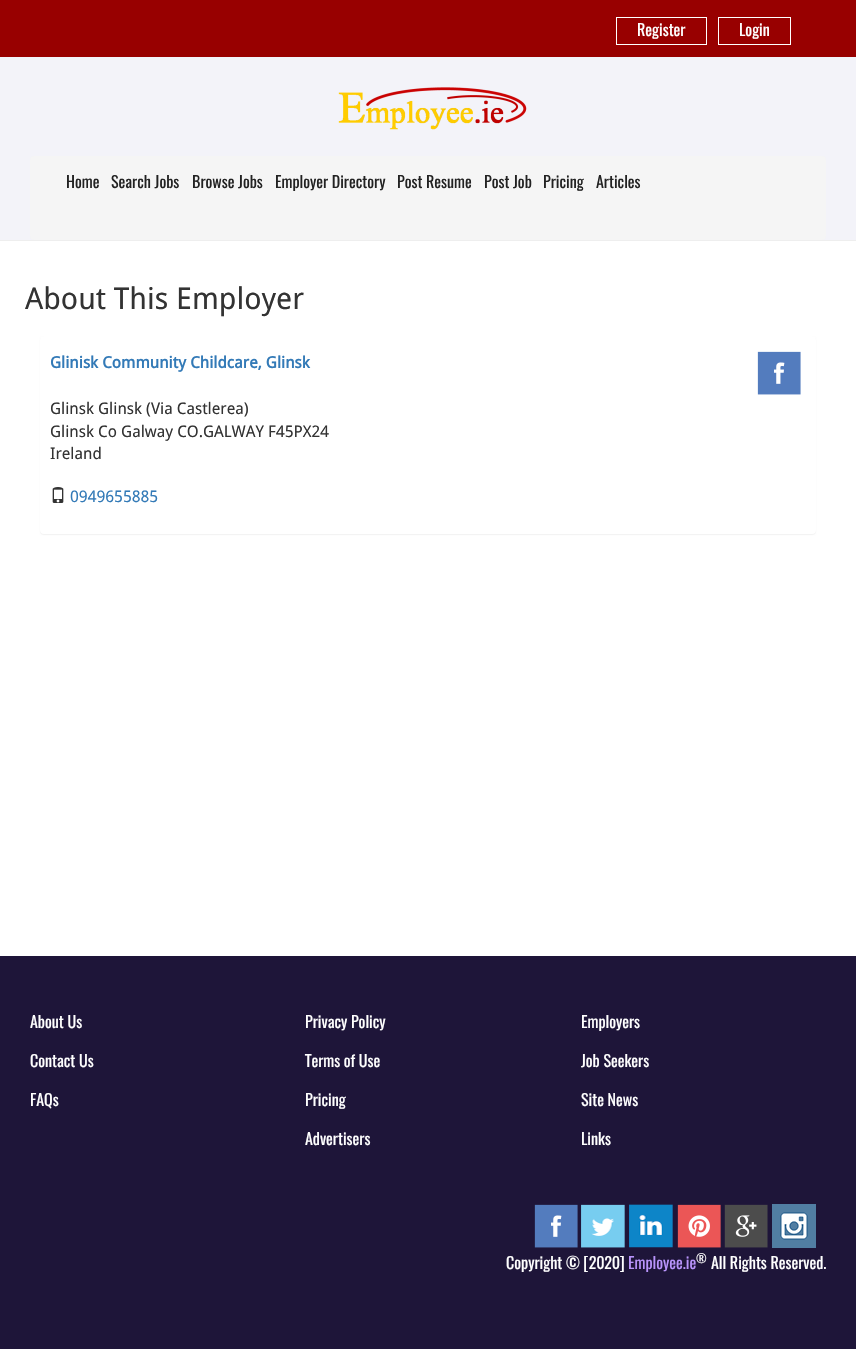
void draw(SkCanvas* canvas) {
	SkPaint paint;
	paint.setAntiAlias(true);
	canvas->clear(0xff1e1539);
	paint.setColor(0xffffffff);
	canvas->drawRect(SkRect::MakeXYWH(0, 241, 856, 715), paint);
	paint.setColor(0xff980000);
	canvas->drawRect(SkRect::MakeXYWH(0, 0, 856, 57), paint);
	paint.setStroke(true);
	paint.setStrokeWidth(1);
	paint.setColor(0xffffffff);
	canvas->drawRect(SkRect::MakeXYWH(616.5, 17.5, 90, 27), paint);
	SkFont f1(fontMgr->matchFamilyStyle("Oswald", SkFontStyle::Normal()), 16);
	f1.setSubpixel(true);
	paint.setStroke(false);
	canvas->drawString("Register", 637, 36, f1, paint);
	paint.setStroke(true);
	canvas->drawRect(SkRect::MakeXYWH(718.5, 17.5, 72, 27), paint);
	paint.setStroke(false);
	canvas->drawString("Login", 739, 36, f1, paint);
	paint.setColor(0xfff3f3f9);
	canvas->drawRect(SkRect::MakeXYWH(0, 57, 856, 183), paint);
	paint.setColor(0xffeeeeee);
	canvas->drawRect(SkRect::MakeXYWH(0, 240, 856, 1), paint);
	canvas->drawImageRect(SkImages::DeferredFromEncodedData(SkData::MakeFromFileName("img1.png")), SkRect::MakeXYWH(338, 87, 189, 43), SkSamplingOptions());
	paint.setColor(0xfff5f5f5);
	canvas->drawRoundRect(SkRect::MakeXYWH(30, 156, 796, 84), 4, 4, paint);
	paint.setColor(0xff222222);
	canvas->drawString("Home", 66, 188, f1, paint);
	canvas->drawString("Search Jobs", 111, 188, f1, paint);
	canvas->drawString("Browse Jobs", 192, 188, f1, paint);
	canvas->drawString("Employer Directory", 275, 188, f1, paint);
	canvas->drawString("Post Resume", 397, 188, f1, paint);
	canvas->drawString("Post Job", 484, 188, f1, paint);
	canvas->drawString("Pricing", 543, 188, f1, paint);
	canvas->drawString("Articles", 596, 188, f1, paint);
	SkFont f2(fontMgr->matchFamilyStyle("Droid Sans", SkFontStyle::Normal()), 30);
	f2.setSubpixel(true);
	paint.setColor(0xff333333);
	canvas->drawString("About This Employer", 25, 309, f2, paint);
	paint.setColor(0x0d000000);
	paint.setMaskFilter(SkMaskFilter::MakeBlur(kNormal_SkBlurStyle, 0.5));
	canvas->drawRoundRect(SkRect::MakeXYWH(40, 337, 776, 198), 4, 4, paint);
	paint.setMaskFilter(nullptr);
	paint.setColor(0xffffffff);
	canvas->drawRoundRect(SkRect::MakeXYWH(40, 336, 776, 198), 4, 4, paint);
	SkFont f3(fontMgr->matchFamilyStyle("Droid Sans", SkFontStyle::Bold()), 16);
	f3.setSubpixel(true);
	paint.setColor(0xff337ab7);
	canvas->drawString("Glinisk Community Childcare, Glinsk", 50, 368, f3, paint);
	SkFont f4(fontMgr->matchFamilyStyle("Droid Sans", SkFontStyle::Normal()), 16);
	f4.setSubpixel(true);
	paint.setColor(0xff333333);
	canvas->drawString("Glinsk Glinsk (Via Castlerea)", 50, 414, f4, paint);
	canvas->drawString("Glinsk Co Galway CO.GALWAY F45PX24", 50, 437, f4, paint);
	canvas->drawString("Ireland", 50, 459, f4, paint);
	canvas->drawImageRect(SkImages::DeferredFromEncodedData(SkData::MakeFromFileName("img2.png")), SkRect::MakeXYWH(52, 487, 12, 16), SkSamplingOptions());
	paint.setColor(0xff337ab7);
	canvas->drawString("0949655885", 70, 502, f4, paint);
	canvas->drawImageRect(SkImages::DeferredFromEncodedData(SkData::MakeFromFileName("img3.png")), SkRect::MakeXYWH(757, 351, 44, 44), SkSamplingOptions());
	paint.setColor(0xffffffff);
	canvas->drawString("About Us", 30, 1028, f1, paint);
	canvas->drawString("Contact Us", 30, 1067, f1, paint);
	canvas->drawString("FAQs", 30, 1106, f1, paint);
	canvas->drawString("Privacy Policy", 305, 1028, f1, paint);
	canvas->drawString("Terms of Use", 305, 1067, f1, paint);
	canvas->drawString("Pricing", 305, 1106, f1, paint);
	canvas->drawString("Advertisers", 305, 1145, f1, paint);
	canvas->drawString("Employers", 581, 1028, f1, paint);
	canvas->drawString("Job Seekers", 581, 1067, f1, paint);
	canvas->drawString("Site News", 581, 1106, f1, paint);
	canvas->drawString("Links", 581, 1145, f1, paint);
	canvas->drawImageRect(SkImages::DeferredFromEncodedData(SkData::MakeFromFileName("img4.png")), SkRect::MakeXYWH(534, 1204, 44, 44), SkSamplingOptions());
	canvas->drawImageRect(SkImages::DeferredFromEncodedData(SkData::MakeFromFileName("img5.png")), SkRect::MakeXYWH(581, 1204, 44, 44), SkSamplingOptions());
	canvas->drawImageRect(SkImages::DeferredFromEncodedData(SkData::MakeFromFileName("img6.png")), SkRect::MakeXYWH(629, 1204, 44, 44), SkSamplingOptions());
	canvas->drawImageRect(SkImages::DeferredFromEncodedData(SkData::MakeFromFileName("img7.png")), SkRect::MakeXYWH(677, 1204, 44, 44), SkSamplingOptions());
	canvas->drawImageRect(SkImages::DeferredFromEncodedData(SkData::MakeFromFileName("img8.png")), SkRect::MakeXYWH(724, 1204, 44, 44), SkSamplingOptions());
	canvas->drawImageRect(SkImages::DeferredFromEncodedData(SkData::MakeFromFileName("img9.png")), SkRect::MakeXYWH(772, 1204, 44, 44), SkSamplingOptions());
	canvas->drawString("Copyright © [2020]", 506, 1269, f1, paint);
	paint.setColor(0xffb994fc);
	canvas->drawString("Employee.ie", 628, 1269, f1, paint);
	SkFont f5(fontMgr->matchFamilyStyle("Oswald", SkFontStyle::Normal()), 12);
	f5.setSubpixel(true);
	paint.setColor(0xffffffff);
	canvas->drawString("®", 696, 1263, f5, paint);
	canvas->drawString("All Rights Reserved.", 711, 1269, f1, paint);
}
